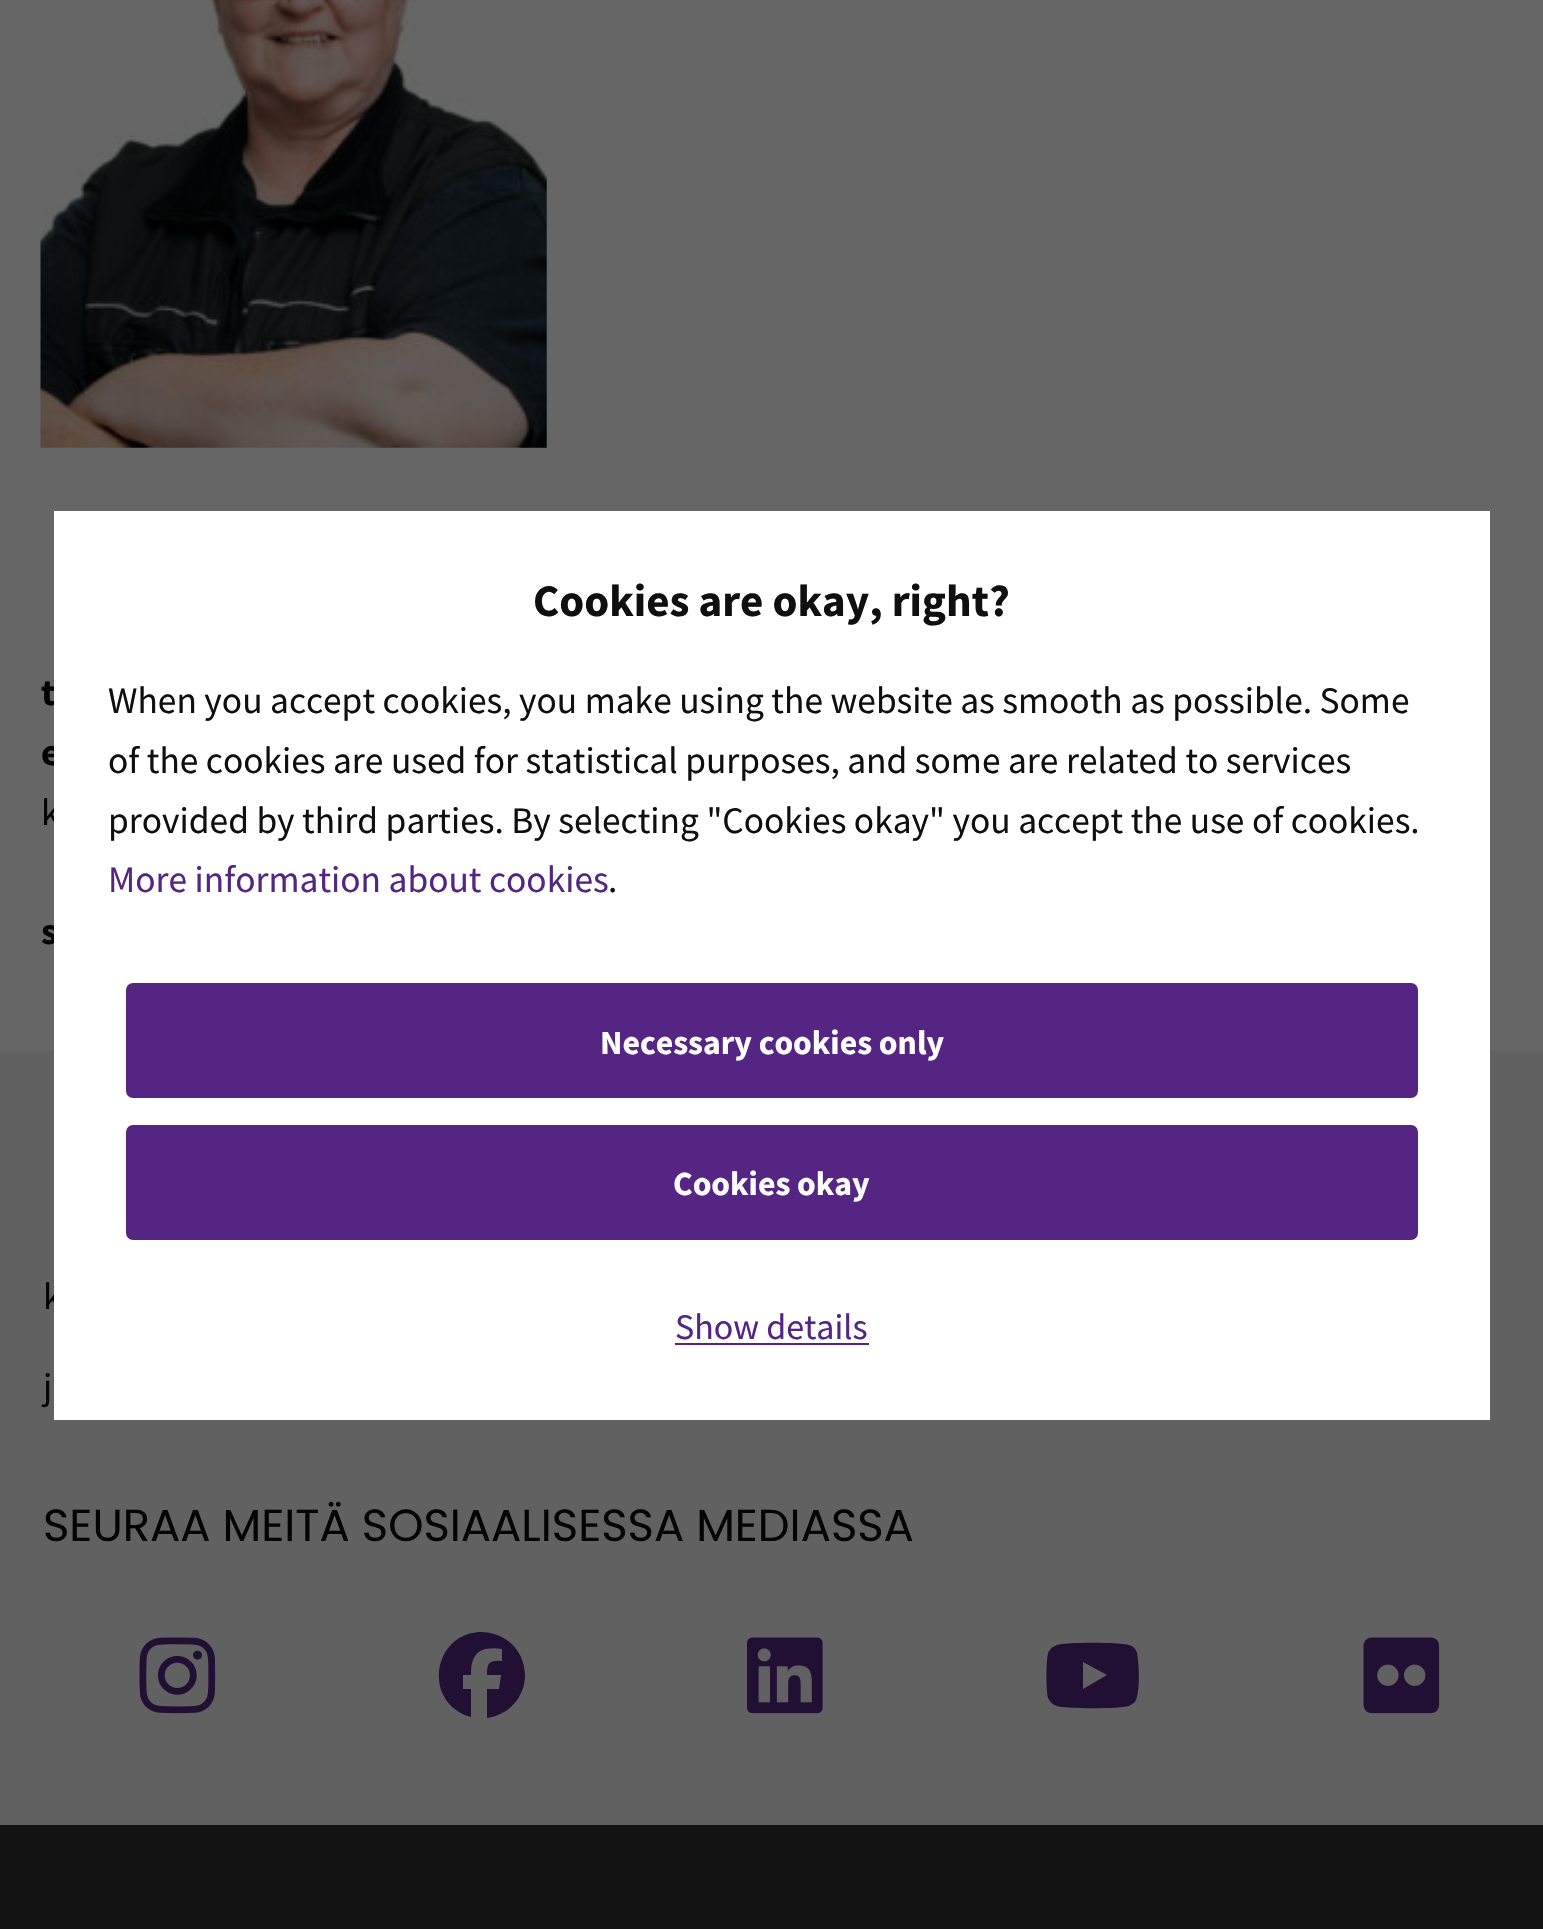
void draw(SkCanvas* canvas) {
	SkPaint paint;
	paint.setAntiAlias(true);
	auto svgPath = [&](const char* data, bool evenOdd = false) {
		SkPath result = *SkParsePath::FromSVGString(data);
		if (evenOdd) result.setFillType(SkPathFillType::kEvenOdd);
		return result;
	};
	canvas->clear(0xff131314);
	paint.setColor(0xff666666);
	canvas->drawRect(SkRect::MakeXYWH(0, 0, 1543, 1051), paint);
	SkFont f1(fontMgr->matchFamilyStyle("Source Sans Pro", SkFontStyle::Bold()), 37.45);
	f1.setSubpixel(true);
	paint.setColor(0xff040404);
	canvas->drawString("t", 41, 705, f1, paint);
	canvas->drawString("e", 41, 765, f1, paint);
	SkFont f2(fontMgr->matchFamilyStyle("Source Sans Pro", SkFontStyle::Normal()), 37.45);
	f2.setSubpixel(true);
	canvas->drawString("k", 41, 825, f2, paint);
	canvas->drawString("s", 41, 944, f1, paint);
	paint.setColor(0xff616161);
	canvas->drawRect(SkRect::MakeXYWH(0, 1051, 1543, 774), paint);
	paint.setColor(0xff040404);
	canvas->drawString("k", 43, 1309, f2, paint);
	paint.setColor(0xffffffff);
	canvas->drawRect(SkRect::MakeXYWH(54, 511, 1436, 909), paint);
	SkFont f3(fontMgr->matchFamilyStyle("Source Sans Pro", SkFontStyle::Bold()), 45);
	f3.setSubpixel(true);
	paint.setColor(0xff0f0f0f);
	canvas->drawString("Cookies are okay, right?", 533, 616, f3, paint);
	canvas->drawString("When you accept cookies, you make using the website as smooth as possible. Some", 108, 713, f2, paint);
	canvas->drawString("of the cookies are used for statistical purposes, and some are related to services", 108, 773, f2, paint);
	canvas->drawString("provided by third parties. By selecting \"Cookies okay\" you accept the use of cookies.", 108, 833, f2, paint);
	paint.setColor(0xff542583);
	canvas->drawString("More information about cookies", 108, 892, f2, paint);
	paint.setColor(0xff0f0f0f);
	canvas->drawString(".", 608, 892, f2, paint);
	paint.setColor(0xff542583);
	canvas->drawRoundRect(SkRect::MakeXYWH(126, 983, 1292, 115), 7, 7, paint);
	SkFont f4(fontMgr->matchFamilyStyle("Source Sans Pro", SkFontStyle::Bold()), 33.75);
	f4.setSubpixel(true);
	paint.setColor(0xffffffff);
	canvas->drawString("Necessary cookies only", 600, 1054, f4, paint);
	paint.setColor(0xff542583);
	canvas->drawRoundRect(SkRect::MakeXYWH(126, 1125, 1292, 115), 7, 7, paint);
	paint.setColor(0xffffffff);
	canvas->drawString("Cookies okay", 673, 1195, f4, paint);
	SkFont f5(fontMgr->matchFamilyStyle("Source Sans Pro", SkFontStyle::Normal()), 36);
	f5.setSubpixel(true);
	paint.setColor(0xff542583);
	canvas->drawString("Show details", 675, 1339, f5, paint);
	canvas->drawRect(SkRect::MakeXYWH(675, 1343, 194, 2), paint);
	canvas->drawImageRect(SkImages::DeferredFromEncodedData(SkData::MakeFromFileName("img1.png")), SkRect::MakeXYWH(40, 0, 507, 448), SkSamplingOptions());
	paint.setColor(0xff040404);
	canvas->drawString("j", 43, 1399, f2, paint);
	SkFont f6(fontMgr->matchFamilyStyle("Poppins", SkFontStyle::Normal()), 44.9);
	f6.setSubpixel(true);
	canvas->drawString("SEURAA MEITÄ SOSIAALISESSA MEDIASSA", 43, 1541, f6, paint);
	canvas->drawImageRect(SkImages::DeferredFromEncodedData(SkData::MakeFromFileName("img2.png")), SkRect::MakeXYWH(139, 1637, 77, 77), SkSamplingOptions());
	paint.setColor(0xff220f34);
	canvas->drawPath(svgPath("M525 1675C524 1628 460 1615 442 1659C438 1668 438 1680 441 1690C446 1704 458 1714 471 1717V1689H463V1675H471C471 1670 471 1665 473 1660C477 1648 491 1647 502 1649V1661C489 1660 487 1663 487 1675H501L499 1689H487V1718C509 1715 525 1697 525 1675Z"), paint);
	canvas->drawImageRect(SkImages::DeferredFromEncodedData(SkData::MakeFromFileName("img3.png")), SkRect::MakeXYWH(747, 1637, 76, 77), SkSamplingOptions());
	canvas->drawPath(svgPath("M1137 1653C1136 1649 1133 1646 1129 1645C1120 1642 1066 1642 1057 1645L1053 1647C1051 1648 1049 1651 1048 1653C1046 1662 1046 1689 1048 1698C1050 1702 1053 1705 1057 1706C1066 1709 1119 1709 1129 1706C1130 1705 1132 1704 1134 1703C1141 1696 1139 1663 1137 1653ZM1083 1689V1662V1689V1662L1107 1675Z"), paint);
	canvas->drawImageRect(SkImages::DeferredFromEncodedData(SkData::MakeFromFileName("img4.png")), SkRect::MakeXYWH(1363, 1637, 77, 77), SkSamplingOptions());
}
